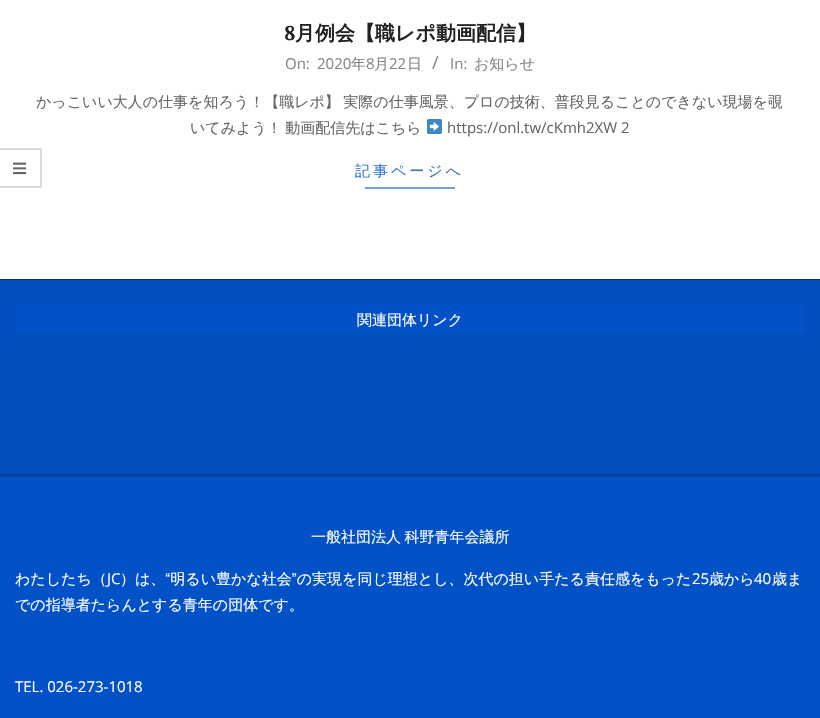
void draw(SkCanvas* canvas) {
	SkPaint paint;
	paint.setAntiAlias(true);
	auto spacedText = [&](const char* s, float x, float y, const SkFont& font, const SkPaint& ink, float letter, float word) {
		std::vector<SkGlyphID> glyphs(font.countText(s, strlen(s), SkTextEncoding::kUTF8));
		std::vector<float> xs(glyphs.size());
		font.textToGlyphs(s, strlen(s), SkTextEncoding::kUTF8, glyphs);
		font.getXPos(glyphs, xs, x);
		float extra = 0;
		for (size_t i = 0; i < glyphs.size(); i++) {
			xs[i] += extra;
			extra += letter + word * (glyphs[i] == font.unicharToGlyph(' '));
		}
		canvas->drawTextBlob(SkTextBlob::MakeFromPosHGlyphs(glyphs, xs, y, font), 0, 0, ink);
	};
	auto svgPath = [&](const char* data, bool evenOdd = false) {
		SkPath result = *SkParsePath::FromSVGString(data);
		if (evenOdd) result.setFillType(SkPathFillType::kEvenOdd);
		return result;
	};
	canvas->clear(0xff0351c6);
	paint.setColor(0xffffffff);
	canvas->drawRect(SkRect::MakeXYWH(0, 0, 820, 279), paint);
	paint.setColor(0xffdbdbdb);
	canvas->drawPath(svgPath("M0 148H42L40 150H0Z"), paint);
	paint.setColor(0x24000000);
	canvas->drawPath(svgPath("M42 148V188L40 186V150Z"), paint);
	canvas->drawPath(svgPath("M42 188H0V186H40Z"), paint);
	canvas->drawImageRect(SkImages::DeferredFromEncodedData(SkData::MakeFromFileName("img1.png")), SkRect::MakeXYWH(13, 162, 14, 13), SkSamplingOptions());
	SkFont f1(fontMgr->matchFamilyStyle("Lora", SkFontStyle::Bold()), 20);
	f1.setSubpixel(true);
	paint.setColor(0xff222222);
	canvas->drawString("8", 284, 40, f1, paint);
	SkFont f2(fontMgr->matchFamilyStyle("WenQuanYi Zen Hei", SkFontStyle::Bold()), 20);
	f2.setSubpixel(true);
	canvas->drawString("月例会【職レポ動画配信】", 295, 40, f2, paint);
	SkFont f3(fontMgr->matchFamilyStyle("Open Sans", SkFontStyle::Normal()), 15);
	f3.setSubpixel(true);
	paint.setColor(0xff858585);
	canvas->drawString("On:", 285, 69, f3, paint);
	canvas->drawString("2020", 317, 69, f3, paint);
	SkFont f4(fontMgr->matchFamilyStyle("WenQuanYi Zen Hei", SkFontStyle(500, SkFontStyle::kNormal_Width, SkFontStyle::kUpright_Slant)), 15);
	f4.setSubpixel(true);
	canvas->drawString("年", 351, 69, f4, paint);
	canvas->drawString("8", 366, 69, f3, paint);
	canvas->drawString("月", 374, 69, f4, paint);
	canvas->drawString("22", 389, 69, f3, paint);
	canvas->drawString("日", 407, 69, f4, paint);
	SkFont f5(fontMgr->matchFamilyStyle("Open Sans", SkFontStyle::Normal()), 18);
	f5.setSubpixel(true);
	canvas->drawString("/", 432, 69, f5, paint);
	canvas->drawString("In:", 450, 69, f3, paint);
	canvas->drawString("お知らせ", 474, 69, f4, paint);
	paint.setColor(0xff666666);
	spacedText("かっこいい大人の仕事を知ろう！【職レポ】 実際の仕事風景、プロの技術、普段見ることのできない現場を覗", 36, 107, f4, paint, 0, -1);
	spacedText("いてみよう！ 動画配信先はこちら", 190, 133, f4, paint, 0, -1);
	canvas->drawImageRect(SkImages::DeferredFromEncodedData(SkData::MakeFromFileName("img2.png")), SkRect::MakeXYWH(427, 119, 15, 15), SkSamplingOptions());
	canvas->drawString("https://onl.tw/cKmh2XW 2", 447, 133, f3, paint);
	paint.setColor(0xff3574d1);
	spacedText("記事ページへ", 355, 176, f4, paint, 3, 0);
	paint.setColor(0xff729edf);
	canvas->drawRect(SkRect::MakeXYWH(365, 187, 90, 2), paint);
	paint.setColor(0xff034ebe);
	canvas->drawRect(SkRect::MakeXYWH(0, 280, 820, 193), paint);
	paint.setColor(0xff02347f);
	canvas->drawRect(SkRect::MakeXYWH(0, 279, 820, 1), paint);
	paint.setColor(0xff0351c6);
	canvas->drawRect(SkRect::MakeXYWH(15, 305, 790, 28), paint);
	paint.setColor(0xffffffff);
	canvas->drawString("関連団体リンク", 357, 325, f4, paint);
	paint.setColor(0xff0346aa);
	canvas->drawRect(SkRect::MakeXYWH(0, 473, 820, 4), paint);
	paint.setColor(0xffffffff);
	spacedText("一般社団法人 科野青年会議所", 311, 542, f4, paint, 0, -1);
	canvas->drawString("わたしたち（", 15, 584, f4, paint);
	canvas->drawString("JC", 107, 584, f3, paint);
	canvas->drawString("）は、“明るい豊かな社会”の実現を同じ理想とし、次代の担い手たる責任感をもった", 120, 584, f4, paint);
	canvas->drawString("25", 692, 584, f3, paint);
	canvas->drawString("歳から", 709, 584, f4, paint);
	canvas->drawString("40", 754, 584, f3, paint);
	canvas->drawString("歳ま", 772, 584, f4, paint);
	canvas->drawString("での指導者たらんとする青年の団体です。", 15, 610, f4, paint);
	canvas->drawString("TEL. 026-273-1018", 15, 692, f3, paint);
}
